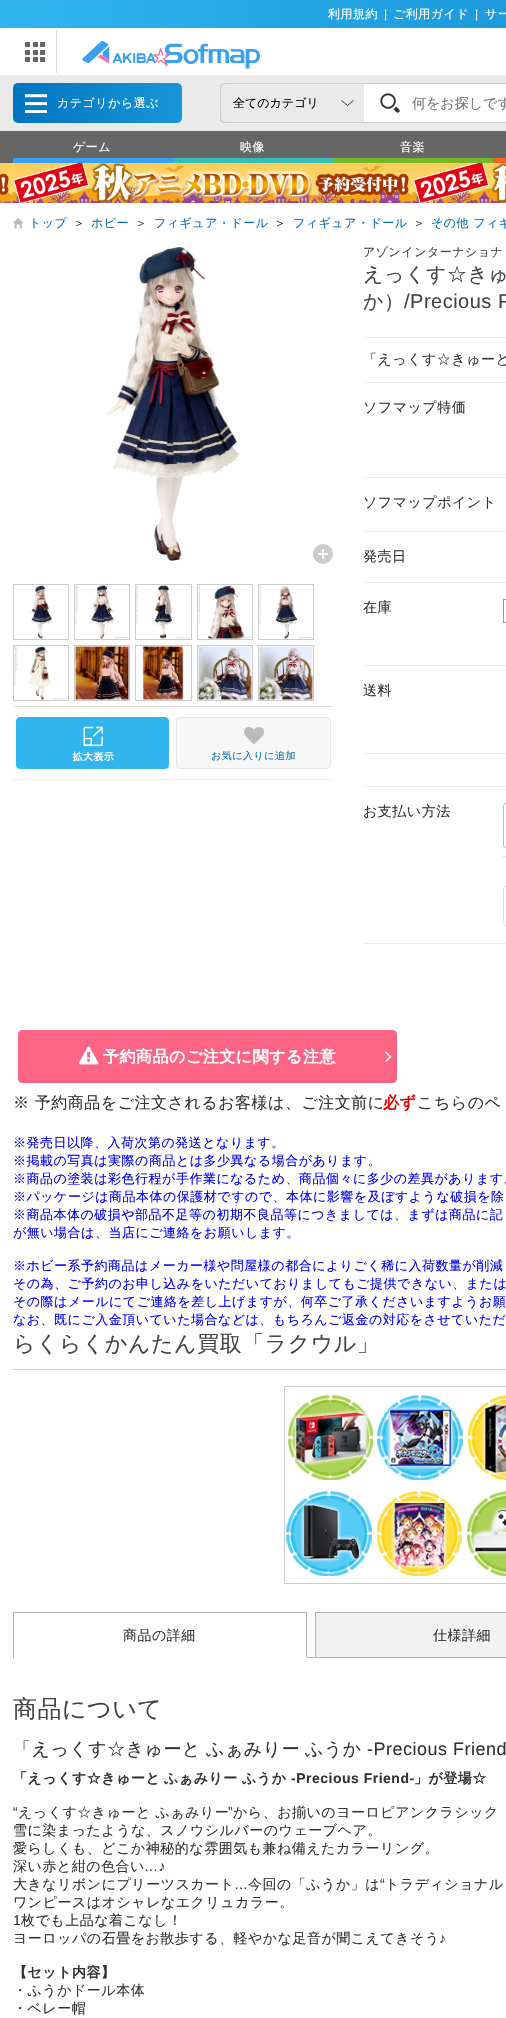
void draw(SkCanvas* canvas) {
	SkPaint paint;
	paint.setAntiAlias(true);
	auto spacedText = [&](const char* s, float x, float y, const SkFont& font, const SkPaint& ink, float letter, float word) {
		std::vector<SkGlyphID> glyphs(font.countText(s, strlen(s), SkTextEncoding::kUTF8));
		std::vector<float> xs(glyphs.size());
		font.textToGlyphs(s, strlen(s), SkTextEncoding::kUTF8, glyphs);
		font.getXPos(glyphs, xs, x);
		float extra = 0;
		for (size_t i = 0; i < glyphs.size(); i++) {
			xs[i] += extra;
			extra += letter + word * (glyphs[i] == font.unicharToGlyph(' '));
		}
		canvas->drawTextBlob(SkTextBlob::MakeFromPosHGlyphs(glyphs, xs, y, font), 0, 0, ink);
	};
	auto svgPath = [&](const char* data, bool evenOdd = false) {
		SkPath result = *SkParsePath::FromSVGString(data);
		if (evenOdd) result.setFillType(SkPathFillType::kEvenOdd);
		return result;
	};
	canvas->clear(0xffffffff);
	{
		const SkColor colors[] = {0xff30b5ef, 0xff0075c1};
		const float stops[] = {0, 1};
		const SkPoint ends[] = {{0, 14}, {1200, 14}};
		paint.setShader(SkGradientShader::MakeLinear(ends, colors, stops, 2, SkTileMode::kClamp));
		paint.setAlpha(255);
	}
	canvas->drawRect(SkRect::MakeXYWH(0, 0, 506, 28), paint);
	SkFont f1(fontMgr->matchFamilyStyle("WenQuanYi Zen Hei", SkFontStyle(500, SkFontStyle::kNormal_Width, SkFontStyle::kUpright_Slant)), 12);
	f1.setSubpixel(true);
	paint.setShader(nullptr);
	paint.setColor(0xffffffff);
	spacedText("利用規約", 328, 18, f1, paint, 0.5, 0);
	SkFont f2(fontMgr->matchFamilyStyle("Liberation Sans", SkFontStyle::Normal()), 12);
	f2.setSubpixel(true);
	spacedText("|", 384, 18, f2, paint, 0.5, 0);
	spacedText("ご利用ガイド", 393, 18, f1, paint, 0.5, 0);
	spacedText("|", 475, 18, f2, paint, 0.5, 0);
	spacedText("サー", 485, 18, f1, paint, 0.5, 0);
	paint.setColor(0xffdddddd);
	canvas->drawPath(svgPath("M57 30V73H56V31Z"), paint);
	canvas->drawImageRect(SkImages::DeferredFromEncodedData(SkData::MakeFromFileName("img1.png")), SkRect::MakeXYWH(25, 42, 20, 20), SkSamplingOptions());
	canvas->drawImageRect(SkImages::DeferredFromEncodedData(SkData::MakeFromFileName("img2.png")), SkRect::MakeXYWH(82, 40, 179, 29), SkSamplingOptions());
	paint.setColor(0xffeaeaea);
	canvas->drawRect(SkRect::MakeXYWH(0, 75, 506, 56), paint);
	{
		const SkColor colors[] = {0xff1895d8, 0xff0075c1};
		const float stops[] = {0, 1};
		const SkPoint ends[] = {{182, 103}, {13, 103}};
		paint.setShader(SkGradientShader::MakeLinear(ends, colors, stops, 2, SkTileMode::kClamp));
		paint.setAlpha(255);
	}
	canvas->drawRoundRect(SkRect::MakeXYWH(13, 83, 169, 40), 5, 5, paint);
	canvas->drawImageRect(SkImages::DeferredFromEncodedData(SkData::MakeFromFileName("img3.png")), SkRect::MakeXYWH(25, 94, 22, 19), SkSamplingOptions());
	paint.setShader(nullptr);
	paint.setColor(0xffffffff);
	spacedText("カテゴリから選ぶ", 57, 107, f1, paint, 0.5, 0);
	paint.setStroke(true);
	paint.setStrokeWidth(1);
	paint.setColor(0xff333333);
	canvas->drawPath(svgPath("M353.5 100.5L347.5 105.5L341.5 100.5"), paint);
	paint.setStroke(false);
	paint.setColor(0xffcccccc);
	canvas->drawPath(svgPath("M225 83H364V123H225C222 123 220 121 220 118V88C220 85 222 83 225 83ZM225 84H364V122H225C223 122 221 120 221 118V88C221 86 223 84 225 84Z", true), paint);
	paint.setColor(0xff000000);
	canvas->drawString("全てのカテゴリ", 233, 107, f1, paint);
	paint.setColor(0xffffffff);
	canvas->drawRect(SkRect::MakeXYWH(364, 84, 142, 38), paint);
	canvas->drawImageRect(SkImages::DeferredFromEncodedData(SkData::MakeFromFileName("img4.png")), SkRect::MakeXYWH(380, 93, 20, 20), SkSamplingOptions());
	paint.setColor(0xffcccccc);
	canvas->drawRect(SkRect::MakeXYWH(364, 83, 142, 1), paint);
	canvas->drawRect(SkRect::MakeXYWH(364, 122, 142, 1), paint);
	SkFont f3(fontMgr->matchFamilyStyle("WenQuanYi Zen Hei", SkFontStyle(500, SkFontStyle::kNormal_Width, SkFontStyle::kUpright_Slant)), 14);
	f3.setSubpixel(true);
	paint.setColor(0xff757575);
	canvas->drawString("何をお探しです", 412, 108, f3, paint);
	paint.setColor(0xff666666);
	canvas->drawRect(SkRect::MakeXYWH(0, 131, 506, 32), paint);
	paint.setColor(0xff3aa0f2);
	canvas->drawRect(SkRect::MakeXYWH(13, 158, 160, 5), paint);
	paint.setColor(0xffffffff);
	spacedText("ゲーム", 73, 151, f1, paint, 0.5, 0);
	paint.setColor(0xff33bfb8);
	canvas->drawRect(SkRect::MakeXYWH(173, 158, 160, 5), paint);
	paint.setColor(0xffffffff);
	spacedText("映像", 240, 151, f1, paint, 0.5, 0);
	paint.setColor(0xff74b727);
	canvas->drawRect(SkRect::MakeXYWH(333, 158, 160, 5), paint);
	paint.setColor(0xffffffff);
	spacedText("音楽", 400, 151, f1, paint, 0.5, 0);
	paint.setColor(0xfff56221);
	canvas->drawRect(SkRect::MakeXYWH(493, 158, 13, 5), paint);
	canvas->drawImageRect(SkImages::DeferredFromEncodedData(SkData::MakeFromFileName("img5.png")), SkRect::MakeXYWH(0, 163, 506, 40), SkSamplingOptions());
	canvas->drawImageRect(SkImages::DeferredFromEncodedData(SkData::MakeFromFileName("img6.png")), SkRect::MakeXYWH(13, 218, 10, 11), SkSamplingOptions());
	paint.setColor(0xff066eb3);
	spacedText("トップ", 29, 227, f1, paint, 0.5, 0);
	paint.setColor(0xff333333);
	spacedText("＞", 73, 227, f1, paint, 0.5, 0);
	paint.setColor(0xff066eb3);
	spacedText("ホビー", 91, 227, f1, paint, 0.5, 0);
	paint.setColor(0xff333333);
	spacedText("＞", 135, 227, f1, paint, 0.5, 0);
	paint.setColor(0xff066eb3);
	spacedText("フィギュア・ドール", 154, 227, f1, paint, 0.5, 0);
	paint.setColor(0xff333333);
	spacedText("＞", 274, 227, f1, paint, 0.5, 0);
	paint.setColor(0xff066eb3);
	spacedText("フィギュア・ドール", 293, 227, f1, paint, 0.5, 0);
	paint.setColor(0xff333333);
	spacedText("＞", 413, 227, f1, paint, 0.5, 0);
	paint.setColor(0xff066eb3);
	spacedText("その他 フィギ", 431, 227, f1, paint, 0.5, 0);
	canvas->drawImageRect(SkImages::DeferredFromEncodedData(SkData::MakeFromFileName("img7.png")), SkRect::MakeXYWH(106, 244, 134, 317), SkSamplingOptions());
	paint.setColor(0xffcccccc);
	canvas->drawCircle(323, 554, 10, paint);
	paint.setColor(0xffffffff);
	canvas->drawRect(SkRect::MakeXYWH(318, 553, 10, 2), paint);
	canvas->drawRect(SkRect::MakeXYWH(322, 549, 2, 10), paint);
	paint.setStroke(true);
	paint.setColor(0xffcccccc);
	canvas->drawRect(SkRect::MakeXYWH(13.5, 584.5, 55, 55), paint);
	canvas->drawImageRect(SkImages::DeferredFromEncodedData(SkData::MakeFromFileName("img8.png")), SkRect::MakeXYWH(29, 585, 24, 54), SkSamplingOptions());
	canvas->drawRect(SkRect::MakeXYWH(74.5, 584.5, 55, 55), paint);
	canvas->drawImageRect(SkImages::DeferredFromEncodedData(SkData::MakeFromFileName("img9.png")), SkRect::MakeXYWH(75, 585, 54, 54), SkSamplingOptions());
	canvas->drawRect(SkRect::MakeXYWH(135.5, 584.5, 56, 55), paint);
	canvas->drawImageRect(SkImages::DeferredFromEncodedData(SkData::MakeFromFileName("img10.png")), SkRect::MakeXYWH(136, 585, 54, 54), SkSamplingOptions());
	canvas->drawRect(SkRect::MakeXYWH(197.5, 584.5, 55, 55), paint);
	canvas->drawImageRect(SkImages::DeferredFromEncodedData(SkData::MakeFromFileName("img11.png")), SkRect::MakeXYWH(198, 585, 53, 54), SkSamplingOptions());
	canvas->drawRect(SkRect::MakeXYWH(258.5, 584.5, 55, 55), paint);
	canvas->drawImageRect(SkImages::DeferredFromEncodedData(SkData::MakeFromFileName("img12.png")), SkRect::MakeXYWH(259, 585, 54, 54), SkSamplingOptions());
	canvas->drawRect(SkRect::MakeXYWH(13.5, 645.5, 55, 55), paint);
	canvas->drawImageRect(SkImages::DeferredFromEncodedData(SkData::MakeFromFileName("img13.png")), SkRect::MakeXYWH(14, 646, 54, 54), SkSamplingOptions());
	canvas->drawRect(SkRect::MakeXYWH(74.5, 645.5, 55, 55), paint);
	canvas->drawImageRect(SkImages::DeferredFromEncodedData(SkData::MakeFromFileName("img14.png")), SkRect::MakeXYWH(75, 646, 54, 54), SkSamplingOptions());
	canvas->drawRect(SkRect::MakeXYWH(135.5, 645.5, 56, 55), paint);
	canvas->drawImageRect(SkImages::DeferredFromEncodedData(SkData::MakeFromFileName("img15.png")), SkRect::MakeXYWH(142, 646, 42, 54), SkSamplingOptions());
	canvas->drawRect(SkRect::MakeXYWH(197.5, 645.5, 55, 55), paint);
	canvas->drawImageRect(SkImages::DeferredFromEncodedData(SkData::MakeFromFileName("img16.png")), SkRect::MakeXYWH(198, 646, 54, 54), SkSamplingOptions());
	canvas->drawRect(SkRect::MakeXYWH(258.5, 645.5, 55, 55), paint);
	canvas->drawImageRect(SkImages::DeferredFromEncodedData(SkData::MakeFromFileName("img17.png")), SkRect::MakeXYWH(259, 646, 54, 54), SkSamplingOptions());
	paint.setStroke(false);
	paint.setColor(0xffdddddd);
	canvas->drawRect(SkRect::MakeXYWH(13, 706, 320, 1), paint);
	paint.setColor(0xff30b5ef);
	canvas->drawRoundRect(SkRect::MakeXYWH(16.5, 717.5, 152, 51), 3.5, 3.5, paint);
	paint.setStroke(true);
	canvas->drawRoundRect(SkRect::MakeXYWH(16.5, 717.5, 152, 51), 3.5, 3.5, paint);
	canvas->drawImageRect(SkImages::DeferredFromEncodedData(SkData::MakeFromFileName("img18.png")), SkRect::MakeXYWH(72, 726, 42, 36), SkSamplingOptions());
	paint.setStroke(false);
	paint.setColor(0xfff7f7f7);
	canvas->drawRoundRect(SkRect::MakeXYWH(176.5, 717.5, 154, 51), 3.5, 3.5, paint);
	paint.setStroke(true);
	paint.setColor(0xffe5e5e5);
	canvas->drawRoundRect(SkRect::MakeXYWH(176.5, 717.5, 154, 51), 3.5, 3.5, paint);
	canvas->drawImageRect(SkImages::DeferredFromEncodedData(SkData::MakeFromFileName("img19.png")), SkRect::MakeXYWH(244, 727, 20, 17), SkSamplingOptions());
	SkFont f4(fontMgr->matchFamilyStyle("WenQuanYi Zen Hei", SkFontStyle(500, SkFontStyle::kNormal_Width, SkFontStyle::kUpright_Slant)), 10);
	f4.setSubpixel(true);
	paint.setStroke(false);
	paint.setColor(0xff066eb3);
	spacedText("お気に入りに追加", 211, 759, f4, paint, 0.5, 0);
	paint.setColor(0xffebebeb);
	canvas->drawRect(SkRect::MakeXYWH(13, 779, 320, 1), paint);
	paint.setColor(0xff444444);
	spacedText("アゾンインターナショナ", 363, 256, f1, paint, 0.5, 0);
	SkFont f5(fontMgr->matchFamilyStyle("WenQuanYi Zen Hei", SkFontStyle(500, SkFontStyle::kNormal_Width, SkFontStyle::kUpright_Slant)), 20);
	f5.setSubpixel(true);
	spacedText("えっくす☆きゅ", 363, 281, f5, paint, 0.5, 0);
	spacedText("か）", 363, 308, f5, paint, 0.5, 0);
	SkFont f6(fontMgr->matchFamilyStyle("Liberation Sans", SkFontStyle::Normal()), 20);
	f6.setSubpixel(true);
	spacedText("/Precious F", 404, 308, f6, paint, 0.5, 0);
	paint.setColor(0xffebebeb);
	canvas->drawRect(SkRect::MakeXYWH(363, 337, 143, 1), paint);
	paint.setColor(0xff333333);
	spacedText("「えっくす☆きゅーと", 363, 364, f3, paint, 0.5, 0);
	paint.setColor(0xffebebeb);
	canvas->drawRect(SkRect::MakeXYWH(363, 382, 143, 1), paint);
	paint.setColor(0xff333333);
	spacedText("ソフマップ特価", 363, 412, f3, paint, 0.5, 0);
	paint.setColor(0xffebebeb);
	canvas->drawRect(SkRect::MakeXYWH(362, 477, 144, 1), paint);
	paint.setColor(0xff333333);
	spacedText("ソフマップポイント", 363, 507, f3, paint, 0.5, 0);
	paint.setColor(0xffebebeb);
	canvas->drawRect(SkRect::MakeXYWH(362, 531, 144, 1), paint);
	paint.setColor(0xff333333);
	spacedText("発売日", 363, 561, f3, paint, 0.5, 0);
	paint.setColor(0xffebebeb);
	canvas->drawRect(SkRect::MakeXYWH(362, 582, 144, 1), paint);
	canvas->drawRect(SkRect::MakeXYWH(362, 665, 144, 1), paint);
	paint.setStroke(true);
	paint.setColor(0xff999999);
	canvas->drawRect(SkRect::MakeXYWH(503.5, 599.5, 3, 23), paint);
	paint.setStroke(false);
	paint.setColor(0xff333333);
	spacedText("在庫", 363, 612, f3, paint, 0.5, 0);
	spacedText("送料", 363, 695, f3, paint, 0.5, 0);
	paint.setColor(0xffebebeb);
	canvas->drawRect(SkRect::MakeXYWH(362, 753, 144, 1), paint);
	canvas->drawRect(SkRect::MakeXYWH(362, 786, 144, 1), paint);
	canvas->drawRect(SkRect::MakeXYWH(362, 943, 144, 1), paint);
	canvas->drawImageRect(SkImages::DeferredFromEncodedData(SkData::MakeFromFileName("img20.png")), SkRect::MakeXYWH(503, 803, 3, 45), SkSamplingOptions());
	paint.setColor(0xffdddddd);
	canvas->drawRect(SkRect::MakeXYWH(503, 856, 3, 1), paint);
	paint.setStroke(true);
	canvas->drawRoundRect(SkRect::MakeXYWH(503.5, 885.5, 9, 41), 5.5, 5.5, paint);
	paint.setStroke(false);
	paint.setColor(0xff333333);
	spacedText("お支払い方法", 363, 816, f3, paint, 0.5, 0);
	paint.setColor(0xfffe6484);
	canvas->drawRoundRect(SkRect::MakeXYWH(18.5, 1030.5, 378, 52), 3.5, 3.5, paint);
	paint.setStroke(true);
	canvas->drawRoundRect(SkRect::MakeXYWH(18.5, 1030.5, 378, 52), 3.5, 3.5, paint);
	canvas->drawImageRect(SkImages::DeferredFromEncodedData(SkData::MakeFromFileName("img21.png")), SkRect::MakeXYWH(79, 1046, 20, 19), SkSamplingOptions());
	SkFont f7(fontMgr->matchFamilyStyle("WenQuanYi Zen Hei", SkFontStyle::Bold()), 16);
	f7.setSubpixel(true);
	paint.setStroke(false);
	paint.setColor(0xffffffff);
	spacedText("予約商品のご注文に関する注意", 103, 1062, f7, paint, 0.5, 0);
	canvas->drawImageRect(SkImages::DeferredFromEncodedData(SkData::MakeFromFileName("img22.png")), SkRect::MakeXYWH(385, 1051, 7, 12), SkSamplingOptions());
	SkFont f8(fontMgr->matchFamilyStyle("WenQuanYi Zen Hei", SkFontStyle(500, SkFontStyle::kNormal_Width, SkFontStyle::kUpright_Slant)), 16);
	f8.setSubpixel(true);
	paint.setColor(0xff333333);
	spacedText("※ 予約商品をご注文されるお客様は、ご注文前に", 13, 1108, f8, paint, 0.5, 0);
	paint.setColor(0xffdd0000);
	spacedText("必ず", 383, 1108, f7, paint, 0.5, 0);
	paint.setColor(0xff333333);
	spacedText("こちらのペ", 417, 1108, f8, paint, 0.5, 0);
	SkFont f9(fontMgr->matchFamilyStyle("WenQuanYi Zen Hei", SkFontStyle(500, SkFontStyle::kNormal_Width, SkFontStyle::kUpright_Slant)), 13);
	f9.setSubpixel(true);
	paint.setColor(0xff0000ff);
	spacedText("※発売日以降、入荷次第の発送となります。", 13, 1147, f9, paint, 0.5, 0);
	spacedText("※掲載の写真は実際の商品とは多少異なる場合があります。", 13, 1165, f9, paint, 0.5, 0);
	spacedText("※商品の塗装は彩色行程が手作業になるため、商品個々に多少の差異があります。", 13, 1183, f9, paint, 0.5, 0);
	spacedText("※パッケージは商品本体の保護材ですので、本体に影響を及ぼすような破損を除", 13, 1201, f9, paint, 0.5, 0);
	spacedText("※商品本体の破損や部品不足等の初期不良品等につきましては、まずは商品に記", 13, 1219, f9, paint, 0.5, 0);
	spacedText("が無い場合は、当店にご連絡をお願いします。", 13, 1237, f9, paint, 0.5, 0);
	spacedText("※ホビー系予約商品はメーカー様や問屋様の都合によりごく稀に入荷数量が削減", 13, 1270, f9, paint, 0.5, 0);
	spacedText("その為、ご予約のお申し込みをいただいておりましてもご提供できない、または", 13, 1288, f9, paint, 0.5, 0);
	spacedText("その際はメールにてご連絡を差し上げますが、何卒ご了承くださいますようお願", 13, 1306, f9, paint, 0.5, 0);
	spacedText("なお、既にご入金頂いていた場合などは、もちろんご返金の対応をさせていただ", 13, 1324, f9, paint, 0.5, 0);
	paint.setColor(0xffcccccc);
	canvas->drawRect(SkRect::MakeXYWH(13, 1369, 493, 1), paint);
	SkFont f10(fontMgr->matchFamilyStyle("WenQuanYi Zen Hei", SkFontStyle(500, SkFontStyle::kNormal_Width, SkFontStyle::kUpright_Slant)), 22);
	f10.setSubpixel(true);
	paint.setColor(0xff444444);
	spacedText("らくらくかんたん買取「ラクウル」", 13, 1351, f10, paint, 0.5, 0);
	canvas->drawImageRect(SkImages::DeferredFromEncodedData(SkData::MakeFromFileName("img23.png")), SkRect::MakeXYWH(284, 1386, 222, 198), SkSamplingOptions());
	paint.setColor(0xffb2b2b2);
	canvas->drawRect(SkRect::MakeXYWH(307, 1657, 8, 1), paint);
	canvas->drawRect(SkRect::MakeXYWH(13, 1612, 294, 1), paint);
	canvas->drawRect(SkRect::MakeXYWH(306, 1612, 1, 46), paint);
	paint.setColor(0xffffffff);
	canvas->drawRect(SkRect::MakeXYWH(306, 1657, 1, 1), paint);
	paint.setColor(0xffb2b2b2);
	canvas->drawRect(SkRect::MakeXYWH(13, 1612, 1, 46), paint);
	paint.setColor(0xff333333);
	spacedText("商品の詳細", 123, 1640, f3, paint, 0.5, 0);
	paint.setColor(0xfff2f2f2);
	canvas->drawRect(SkRect::MakeXYWH(315.5, 1612.5, 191, 45), paint);
	paint.setStroke(true);
	paint.setColor(0xffb2b2b2);
	canvas->drawRect(SkRect::MakeXYWH(315.5, 1612.5, 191, 45), paint);
	paint.setStroke(false);
	paint.setColor(0xff333333);
	spacedText("仕様詳細", 433, 1640, f3, paint, 0.5, 0);
	SkFont f11(fontMgr->matchFamilyStyle("WenQuanYi Zen Hei", SkFontStyle(500, SkFontStyle::kNormal_Width, SkFontStyle::kUpright_Slant)), 24);
	f11.setSubpixel(true);
	paint.setColor(0xff444444);
	spacedText("商品について", 13, 1717, f11, paint, 0.5, 0);
	SkFont f12(fontMgr->matchFamilyStyle("WenQuanYi Zen Hei", SkFontStyle(500, SkFontStyle::kNormal_Width, SkFontStyle::kUpright_Slant)), 18);
	f12.setSubpixel(true);
	paint.setColor(0xff333333);
	spacedText("「えっくす☆きゅーと", 13, 1755, f12, paint, 0.5, 0);
	spacedText("ふぁみりー", 206, 1755, f12, paint, 0.5, 0);
	spacedText("ふうか", 305, 1755, f12, paint, 0.5, 0);
	SkFont f13(fontMgr->matchFamilyStyle("Liberation Sans", SkFontStyle::Normal()), 18);
	f13.setSubpixel(true);
	spacedText("-Precious Friend", 367, 1755, f13, paint, 0.5, 0);
	SkFont f14(fontMgr->matchFamilyStyle("WenQuanYi Zen Hei", SkFontStyle::Bold()), 14);
	f14.setSubpixel(true);
	spacedText("「えっくす☆きゅーと", 13, 1783, f14, paint, 0.5, 0);
	spacedText("ふぁみりー", 164, 1783, f14, paint, 0.5, 0);
	spacedText("ふうか", 242, 1783, f14, paint, 0.5, 0);
	SkFont f15(fontMgr->matchFamilyStyle("Liberation Sans", SkFontStyle::Bold()), 14);
	f15.setSubpixel(true);
	spacedText("-Precious Friend-", 291, 1783, f15, paint, 0.5, 0);
	spacedText("」が登場☆", 414, 1783, f14, paint, 0.5, 0);
	SkFont f16(fontMgr->matchFamilyStyle("Liberation Sans", SkFontStyle::Normal()), 14);
	f16.setSubpixel(true);
	spacedText("“", 13, 1817, f16, paint, 0.5, 0);
	spacedText("えっくす☆きゅーと ふぁみりー", 18, 1817, f3, paint, 0.5, 0);
	spacedText("”", 228, 1817, f16, paint, 0.5, 0);
	spacedText("から、お揃いのヨーロピアンクラシック", 233, 1817, f3, paint, 0.5, 0);
	spacedText("雪に染まったような、スノウシルバーのウェーブヘア。", 13, 1835, f3, paint, 0.5, 0);
	spacedText("愛らしくも、どこか神秘的な雰囲気も兼ね備えたカラーリング。", 13, 1853, f3, paint, 0.5, 0);
	spacedText("深い赤と紺の色合い", 13, 1871, f3, paint, 0.5, 0);
	spacedText("…♪", 144, 1871, f16, paint, 0.5, 0);
	spacedText("大きなリボンにプリーツスカート", 13, 1889, f3, paint, 0.5, 0);
	spacedText("今回の「ふうか」は", 248, 1889, f3, paint, 0.5, 0);
	spacedText("“", 380, 1889, f16, paint, 0.5, 0);
	spacedText("トラディショナル", 385, 1889, f3, paint, 0.5, 0);
	spacedText("…", 234, 1889, f16, paint, 0.5, 0);
	spacedText("ワンピースはオシャレなエクリュカラー。", 13, 1907, f3, paint, 0.5, 0);
	spacedText("1", 13, 1925, f16, paint, 0.5, 0);
	spacedText("枚でも上品な着こなし！", 21, 1925, f3, paint, 0.5, 0);
	spacedText("ヨーロッパの石畳をお散歩する、軽やかな足音が聞こえてきそう", 13, 1943, f3, paint, 0.5, 0);
	spacedText("♪", 439, 1943, f16, paint, 0.5, 0);
	spacedText("【セット内容】", 13, 1977, f14, paint, 0.5, 0);
	spacedText("・ふうかドール本体", 13, 1995, f3, paint, 0.5, 0);
	spacedText("・ベレー帽", 13, 2013, f3, paint, 0.5, 0);
}
